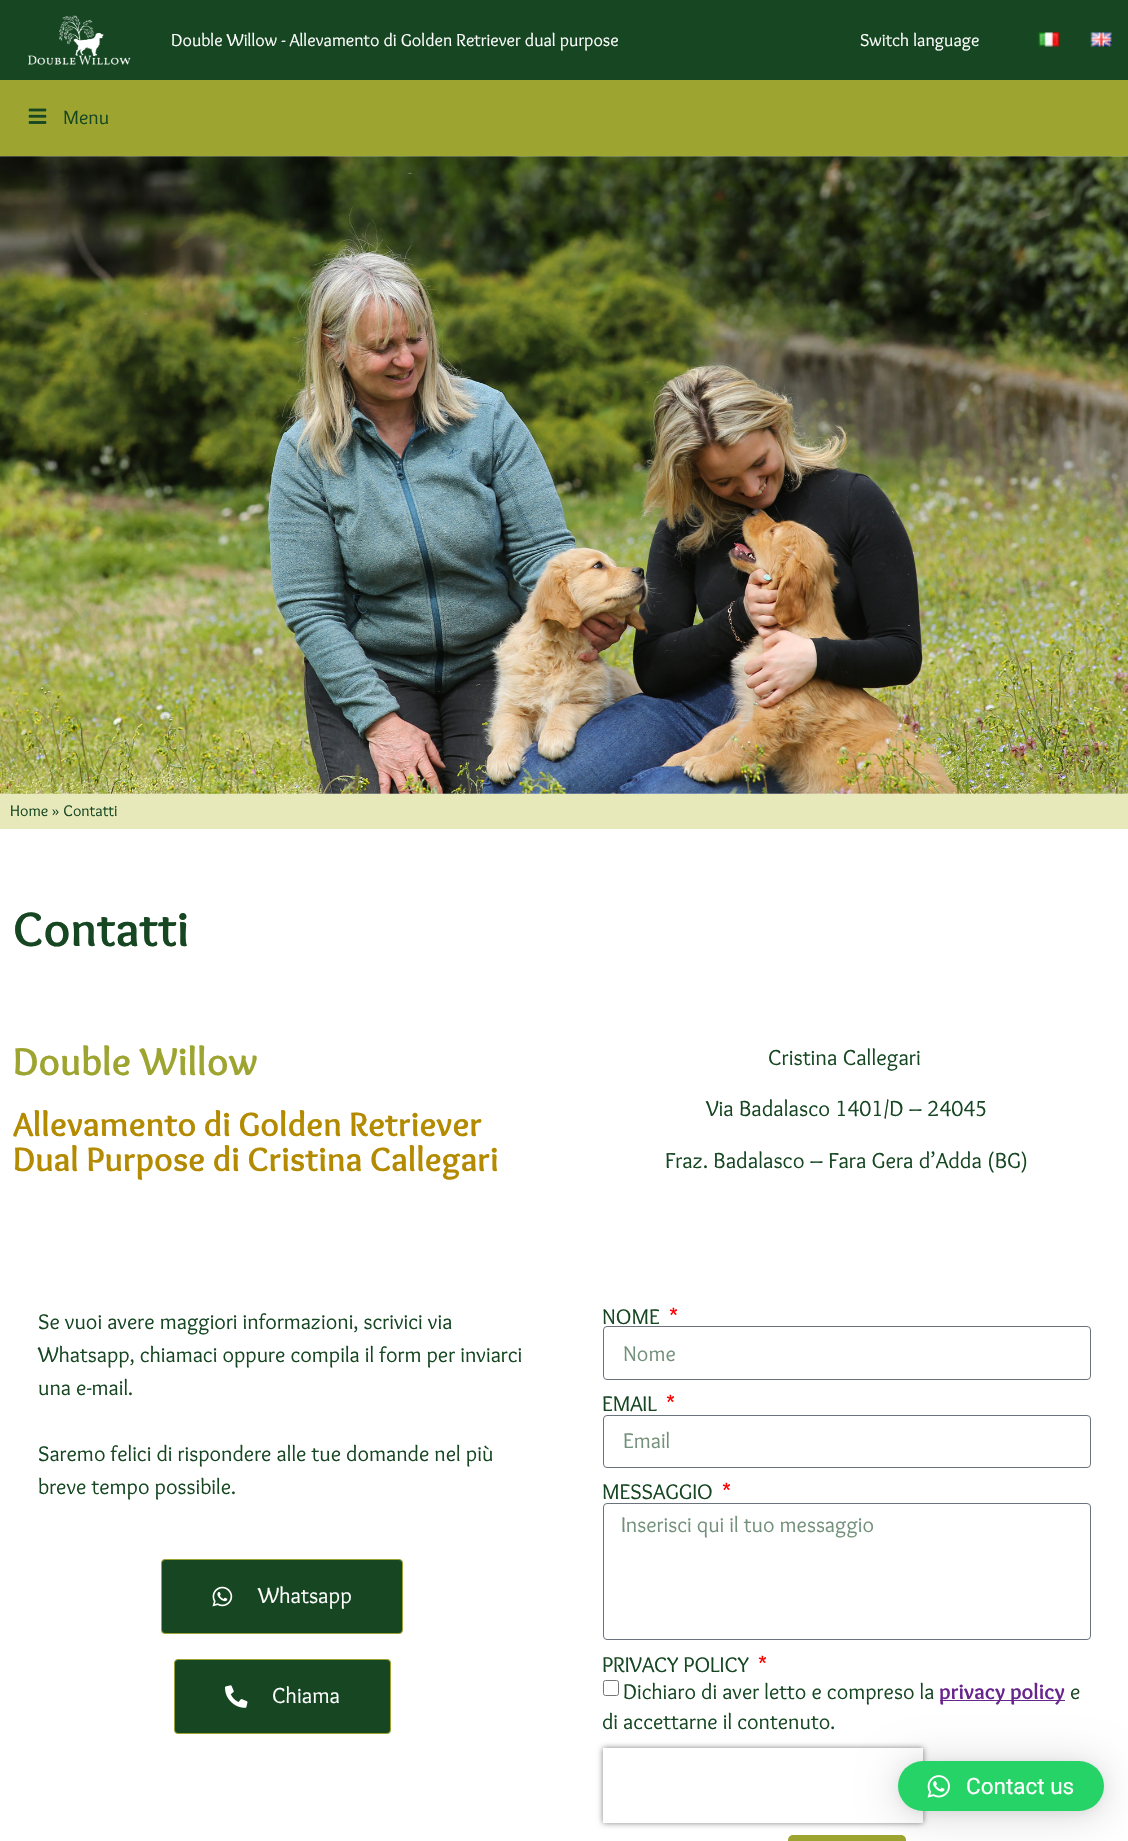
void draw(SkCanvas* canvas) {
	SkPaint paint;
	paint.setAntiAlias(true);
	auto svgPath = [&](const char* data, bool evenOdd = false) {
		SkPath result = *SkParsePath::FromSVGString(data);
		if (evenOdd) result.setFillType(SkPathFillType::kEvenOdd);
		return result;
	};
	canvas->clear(0xffffffff);
	paint.setColor(0xff164722);
	canvas->drawRect(SkRect::MakeXYWH(0, 0, 1128, 80), paint);
	canvas->drawImageRect(SkImages::DeferredFromEncodedData(SkData::MakeFromFileName("img1.png")), SkRect::MakeXYWH(28, 15, 103, 50), SkSamplingOptions());
	SkFont f1(fontMgr->matchFamilyStyle("Overlock", SkFontStyle::Normal()), 18);
	f1.setSubpixel(true);
	paint.setColor(0xffffffff);
	canvas->drawString("Double Willow - Allevamento di Golden Retriever dual purpose", 171, 46, f1, paint);
	canvas->drawString("Switch language", 860, 46, f1, paint);
	canvas->drawImageRect(SkImages::DeferredFromEncodedData(SkData::MakeFromFileName("img2.png")), SkRect::MakeXYWH(1038, 32, 21, 15), SkSamplingOptions());
	canvas->drawImageRect(SkImages::DeferredFromEncodedData(SkData::MakeFromFileName("img3.png")), SkRect::MakeXYWH(1090, 32, 22, 15), SkSamplingOptions());
	paint.setColor(0xff9da42f);
	canvas->drawRect(SkRect::MakeXYWH(0, 80, 1128, 76), paint);
	canvas->drawImageRect(SkImages::DeferredFromEncodedData(SkData::MakeFromFileName("img4.png")), SkRect::MakeXYWH(28, 108, 19, 16), SkSamplingOptions());
	SkFont f2(fontMgr->matchFamilyStyle("Overlock", SkFontStyle::Normal()), 20);
	f2.setSubpixel(true);
	paint.setColor(0xff164722);
	canvas->drawString("Menu", 63, 124, f2, paint);
	canvas->drawImageRect(SkImages::DeferredFromEncodedData(SkData::MakeFromFileName("img5.png")), SkRect::MakeXYWH(0, 156, 1128, 638), SkSamplingOptions());
	paint.setColor(0xffe7e9bb);
	canvas->drawRect(SkRect::MakeXYWH(0, 794, 1128, 35), paint);
	SkFont f3(fontMgr->matchFamilyStyle("Overlock", SkFontStyle::Normal()), 16);
	f3.setSubpixel(true);
	paint.setColor(0xff164722);
	canvas->drawString("Home » Contatti", 10, 816, f3, paint);
	SkFont f4(fontMgr->matchFamilyStyle("Overlock", SkFontStyle::Bold()), 50);
	f4.setSubpixel(true);
	canvas->drawString("Contatti", 13, 946, f4, paint);
	SkFont f5(fontMgr->matchFamilyStyle("Overlock", SkFontStyle::Bold()), 40);
	f5.setSubpixel(true);
	paint.setColor(0xff9da42f);
	canvas->drawString("Double Willow", 13, 1075, f5, paint);
	SkFont f6(fontMgr->matchFamilyStyle("Overlock", SkFontStyle::Bold()), 35);
	f6.setSubpixel(true);
	paint.setColor(0xffb38a00);
	canvas->drawString("Allevamento di Golden Retriever", 13, 1136, f6, paint);
	canvas->drawString("Dual Purpose di Cristina Callegari", 13, 1171, f6, paint);
	SkFont f7(fontMgr->matchFamilyStyle("Overlock", SkFontStyle::Normal()), 22.5);
	f7.setSubpixel(true);
	paint.setColor(0xff164722);
	canvas->drawString("Cristina Callegari", 768, 1065, f7, paint);
	canvas->drawString("Via Badalasco 1401/D – 24045", 706, 1116, f7, paint);
	canvas->drawString("Fraz. Badalasco – Fara Gera d’Adda (BG)", 665, 1168, f7, paint);
	SkFont f8(fontMgr->matchFamilyStyle("Overlock", SkFontStyle::Normal()), 22);
	f8.setSubpixel(true);
	canvas->drawString("Se vuoi avere maggiori informazioni, scrivici via", 38, 1329, f8, paint);
	canvas->drawString("Whatsapp, chiamaci oppure compila il form per inviarci", 38, 1362, f8, paint);
	canvas->drawString("una e-mail.", 38, 1395, f8, paint);
	canvas->drawString("Saremo felici di rispondere alle tue domande nel più", 38, 1461, f8, paint);
	canvas->drawString("breve tempo possibile.", 38, 1494, f8, paint);
	canvas->drawRoundRect(SkRect::MakeXYWH(161.5, 1559.5, 241, 74), 3.5, 3.5, paint);
	paint.setStroke(true);
	paint.setStrokeWidth(1);
	paint.setColor(0xff9da42f);
	canvas->drawRoundRect(SkRect::MakeXYWH(161.5, 1559.5, 241, 74), 3.5, 3.5, paint);
	canvas->drawImageRect(SkImages::DeferredFromEncodedData(SkData::MakeFromFileName("img6.png")), SkRect::MakeXYWH(212, 1586, 21, 21), SkSamplingOptions());
	paint.setStroke(false);
	paint.setColor(0xffffffff);
	canvas->drawString("Whatsapp", 258, 1603, f7, paint);
	paint.setColor(0xff164722);
	canvas->drawRoundRect(SkRect::MakeXYWH(174.5, 1659.5, 216, 74), 3.5, 3.5, paint);
	paint.setStroke(true);
	paint.setColor(0xff9da42f);
	canvas->drawRoundRect(SkRect::MakeXYWH(174.5, 1659.5, 216, 74), 3.5, 3.5, paint);
	canvas->drawImageRect(SkImages::DeferredFromEncodedData(SkData::MakeFromFileName("img7.png")), SkRect::MakeXYWH(225, 1685, 23, 23), SkSamplingOptions());
	paint.setStroke(false);
	paint.setColor(0xffffffff);
	canvas->drawString("Chiama", 272, 1703, f7, paint);
	paint.setColor(0xff164722);
	canvas->drawString("NOME", 602, 1324, f8, paint);
	paint.setColor(0xffff0000);
	canvas->drawString("*", 669, 1324, f8, paint);
	paint.setStroke(true);
	paint.setColor(0xff69727d);
	canvas->drawRoundRect(SkRect::MakeXYWH(603.5, 1326.5, 487, 53), 3.5, 3.5, paint);
	paint.setStroke(false);
	paint.setColor(0xff73917a);
	canvas->drawString("Nome", 623, 1361, f8, paint);
	paint.setColor(0xff164722);
	canvas->drawString("EMAIL", 602, 1411, f8, paint);
	paint.setColor(0xffff0000);
	canvas->drawString("*", 666, 1411, f8, paint);
	paint.setStroke(true);
	paint.setColor(0xff69727d);
	canvas->drawRoundRect(SkRect::MakeXYWH(603.5, 1415.5, 487, 52), 3.5, 3.5, paint);
	paint.setStroke(false);
	paint.setColor(0xff73917a);
	canvas->drawString("Email", 623, 1448, f8, paint);
	paint.setColor(0xff164722);
	canvas->drawString("MESSAGGIO", 602, 1499, f8, paint);
	paint.setColor(0xffff0000);
	canvas->drawString("*", 722, 1499, f8, paint);
	paint.setStroke(true);
	paint.setColor(0xff69727d);
	canvas->drawRoundRect(SkRect::MakeXYWH(603.5, 1503.5, 487, 136), 3.5, 3.5, paint);
	paint.setStroke(false);
	paint.setColor(0xff73917a);
	canvas->drawString("Inserisci qui il tuo messaggio", 621, 1532, f8, paint);
	paint.setColor(0xff164722);
	canvas->drawString("PRIVACY POLICY", 602, 1672, f8, paint);
	paint.setColor(0xffff0000);
	canvas->drawString("*", 758, 1672, f8, paint);
	paint.setStroke(true);
	paint.setColor(0xff767676);
	canvas->drawRoundRect(SkRect::MakeXYWH(603.5, 1680.5, 15, 15), 2, 2, paint);
	paint.setStroke(false);
	paint.setColor(0xff164722);
	canvas->drawString("Dichiaro di aver letto e compreso la", 623, 1699, f8, paint);
	paint.setColor(0xff68258d);
	canvas->drawRect(SkRect::MakeXYWH(940, 1700, 125, 1), paint);
	SkFont f9(fontMgr->matchFamilyStyle("Overlock", SkFontStyle::Bold()), 22);
	f9.setSubpixel(true);
	canvas->drawString("privacy policy", 939, 1699, f9, paint);
	paint.setColor(0xff164722);
	canvas->drawString("e", 1070, 1699, f8, paint);
	canvas->drawString("di accettarne il contenuto.", 602, 1729, f8, paint);
	canvas->save();
	canvas->clipPath(svgPath("M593 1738H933V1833H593ZM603 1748H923V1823H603Z", true), true);
	paint.setColor(0xff808080);
	paint.setMaskFilter(SkMaskFilter::MakeBlur(kNormal_SkBlurStyle, 3));
	canvas->drawRect(SkRect::MakeXYWH(603, 1748, 320, 75), paint);
	paint.setMaskFilter(nullptr);
	canvas->restore();
	paint.setColor(0xff9da42f);
	canvas->drawRoundRect(SkRect::MakeXYWH(788, 1835, 118, 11), 5, 5, paint);
	paint.setColor(0x29000000);
	paint.setMaskFilter(SkMaskFilter::MakeBlur(kNormal_SkBlurStyle, 20));
	canvas->drawRoundRect(SkRect::MakeXYWH(898, 1764, 206, 50), 25, 25, paint);
	paint.setMaskFilter(nullptr);
	paint.setColor(0x0f000000);
	paint.setMaskFilter(SkMaskFilter::MakeBlur(kNormal_SkBlurStyle, 4));
	canvas->drawRoundRect(SkRect::MakeXYWH(898, 1763, 206, 50), 25, 25, paint);
	paint.setMaskFilter(nullptr);
	paint.setColor(0xff25d366);
	canvas->drawRoundRect(SkRect::MakeXYWH(898, 1761, 206, 50), 25, 25, paint);
	canvas->drawImageRect(SkImages::DeferredFromEncodedData(SkData::MakeFromFileName("img8.png")), SkRect::MakeXYWH(927, 1775, 23, 23), SkSamplingOptions());
	SkFont f10(fontMgr->matchFamilyStyle("Roboto", SkFontStyle::Normal()), 22.5);
	f10.setSubpixel(true);
	paint.setColor(0xffffffff);
	canvas->drawString("Contact us", 966, 1794, f10, paint);
}
